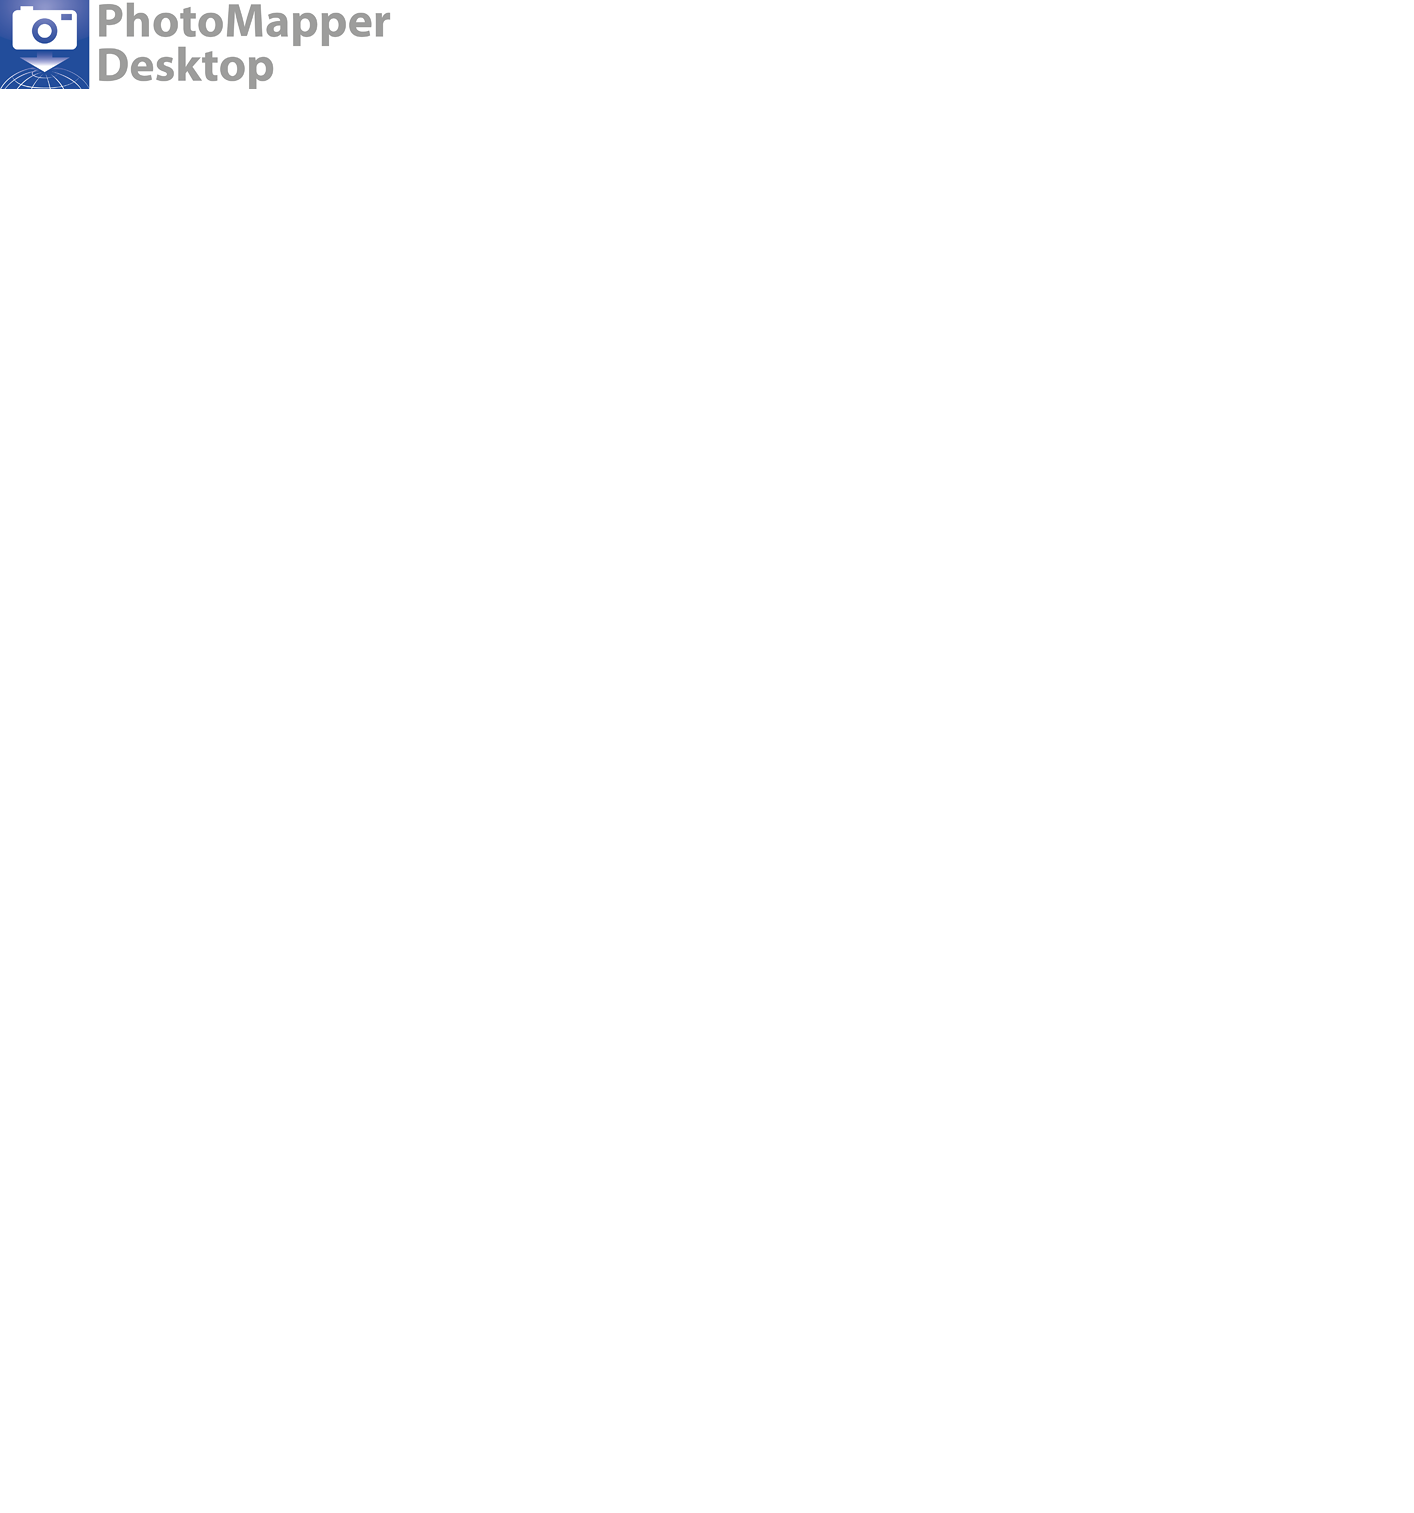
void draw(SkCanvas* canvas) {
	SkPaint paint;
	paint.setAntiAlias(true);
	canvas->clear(0xffffffff);
	canvas->drawImageRect(SkImages::DeferredFromEncodedData(SkData::MakeFromFileName("img1.png")), SkRect::MakeXYWH(0, 0, 391, 89), SkSamplingOptions());
}
